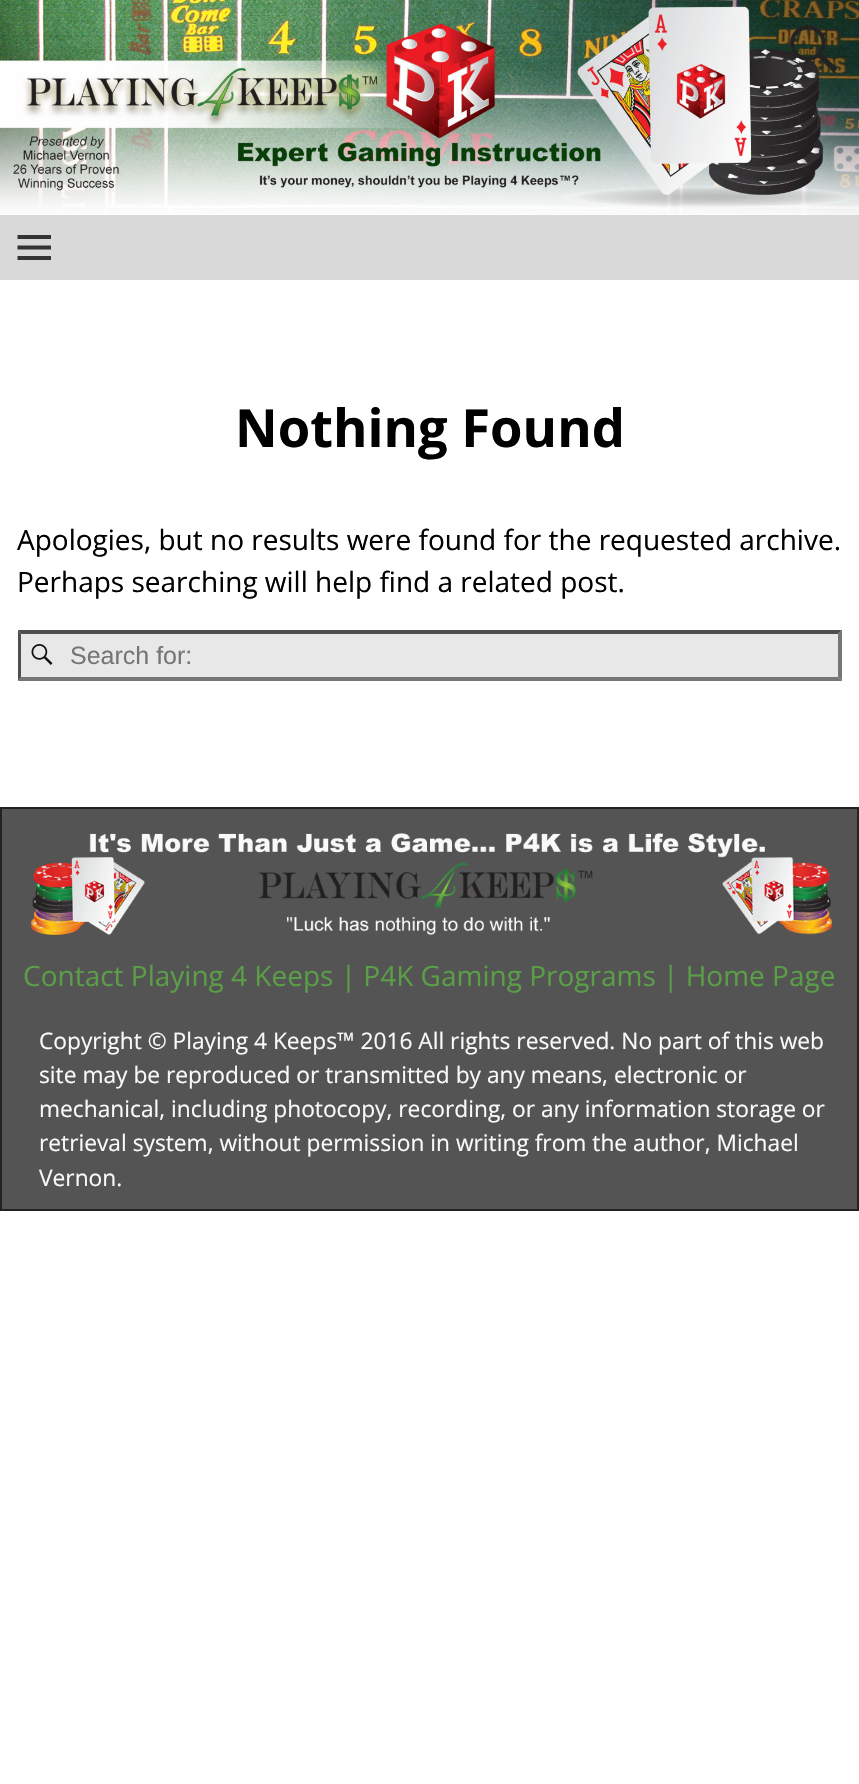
void draw(SkCanvas* canvas) {
	SkPaint paint;
	paint.setAntiAlias(true);
	auto svgPath = [&](const char* data, bool evenOdd = false) {
		SkPath result = *SkParsePath::FromSVGString(data);
		if (evenOdd) result.setFillType(SkPathFillType::kEvenOdd);
		return result;
	};
	canvas->clear(0xffffffff);
	canvas->drawImageRect(SkImages::DeferredFromEncodedData(SkData::MakeFromFileName("img1.png")), SkRect::MakeXYWH(0, 0, 859, 215), SkSamplingOptions());
	canvas->drawImageRect(SkImages::DeferredFromEncodedData(SkData::MakeFromFileName("img2.png")), SkRect::MakeXYWH(790, 25, 48, 48), SkSamplingOptions());
	paint.setColor(0xffd9d9d9);
	canvas->drawRect(SkRect::MakeXYWH(0, 215, 859, 65), paint);
	paint.setColor(0xff333333);
	canvas->drawPath(svgPath("M17.5 260V256H51V260ZM17.5 235H51V239H17.5ZM17.5 249.5V245.5H51V249.5Z"), paint);
	SkFont f1(fontMgr->matchFamilyStyle("Open Sans", SkFontStyle::Bold()), 52.5);
	f1.setSubpixel(true);
	paint.setColor(0xff000000);
	canvas->drawString("Nothing Found", 235, 447, f1, paint);
	SkFont f2(fontMgr->matchFamilyStyle("Open Sans", SkFontStyle::Normal()), 28);
	f2.setSubpixel(true);
	canvas->drawString("Apologies, but no results were found for the requested archive.", 17, 550, f2, paint);
	canvas->drawString("Perhaps searching will help find a related post.", 17, 592, f2, paint);
	paint.setColor(0xffe8e8e8);
	canvas->drawRect(SkRect::MakeXYWH(18, 630, 824, 51), paint);
	canvas->drawImageRect(SkImages::DeferredFromEncodedData(SkData::MakeFromFileName("img3.png")), SkRect::MakeXYWH(31, 644, 22, 21), SkSamplingOptions());
	paint.setColor(0xff4f4f4f);
	canvas->drawPath(svgPath("M18 630H842L838 634H21Z"), paint);
	paint.setColor(0xff767676);
	canvas->drawPath(svgPath("M842 630V681L838 677V634Z"), paint);
	canvas->drawPath(svgPath("M842 681H18L21 677H838Z"), paint);
	paint.setColor(0xff4f4f4f);
	canvas->drawPath(svgPath("M18 681V630L21 634V677Z"), paint);
	SkFont f3(fontMgr->matchFamilyStyle("Liberation Sans", SkFontStyle::Normal()), 25);
	f3.setSubpixel(true);
	paint.setColor(0xff757575);
	canvas->drawString("Search for:", 70, 664, f3, paint);
	paint.setColor(0xff545454);
	canvas->drawRect(SkRect::MakeXYWH(1, 808, 857, 402), paint);
	paint.setStroke(true);
	paint.setStrokeWidth(2);
	paint.setColor(0xff222222);
	canvas->drawRect(SkRect::MakeXYWH(1, 808, 857, 402), paint);
	canvas->drawImageRect(SkImages::DeferredFromEncodedData(SkData::MakeFromFileName("img4.png")), SkRect::MakeXYWH(31, 833, 801, 102), SkSamplingOptions());
	paint.setStroke(false);
	paint.setColor(0xff5a9e47);
	canvas->drawString("Contact Playing 4 Keeps | P4K Gaming Programs | Home Page", 23, 986, f2, paint);
	SkFont f4(fontMgr->matchFamilyStyle("Open Sans", SkFontStyle::Normal()), 22.75);
	f4.setSubpixel(true);
	paint.setColor(0xfffafafa);
	canvas->drawString("Copyright © Playing 4 Keeps™ 2016 All rights reserved. No part of this web", 39, 1049, f4, paint);
	canvas->drawString("site may be reproduced or transmitted by any means, electronic or", 39, 1083, f4, paint);
	canvas->drawString("mechanical, including photocopy, recording, or any information storage or", 39, 1117, f4, paint);
	canvas->drawString("retrieval system, without permission in writing from the author, Michael", 39, 1151, f4, paint);
	canvas->drawString("Vernon.", 39, 1186, f4, paint);
}
